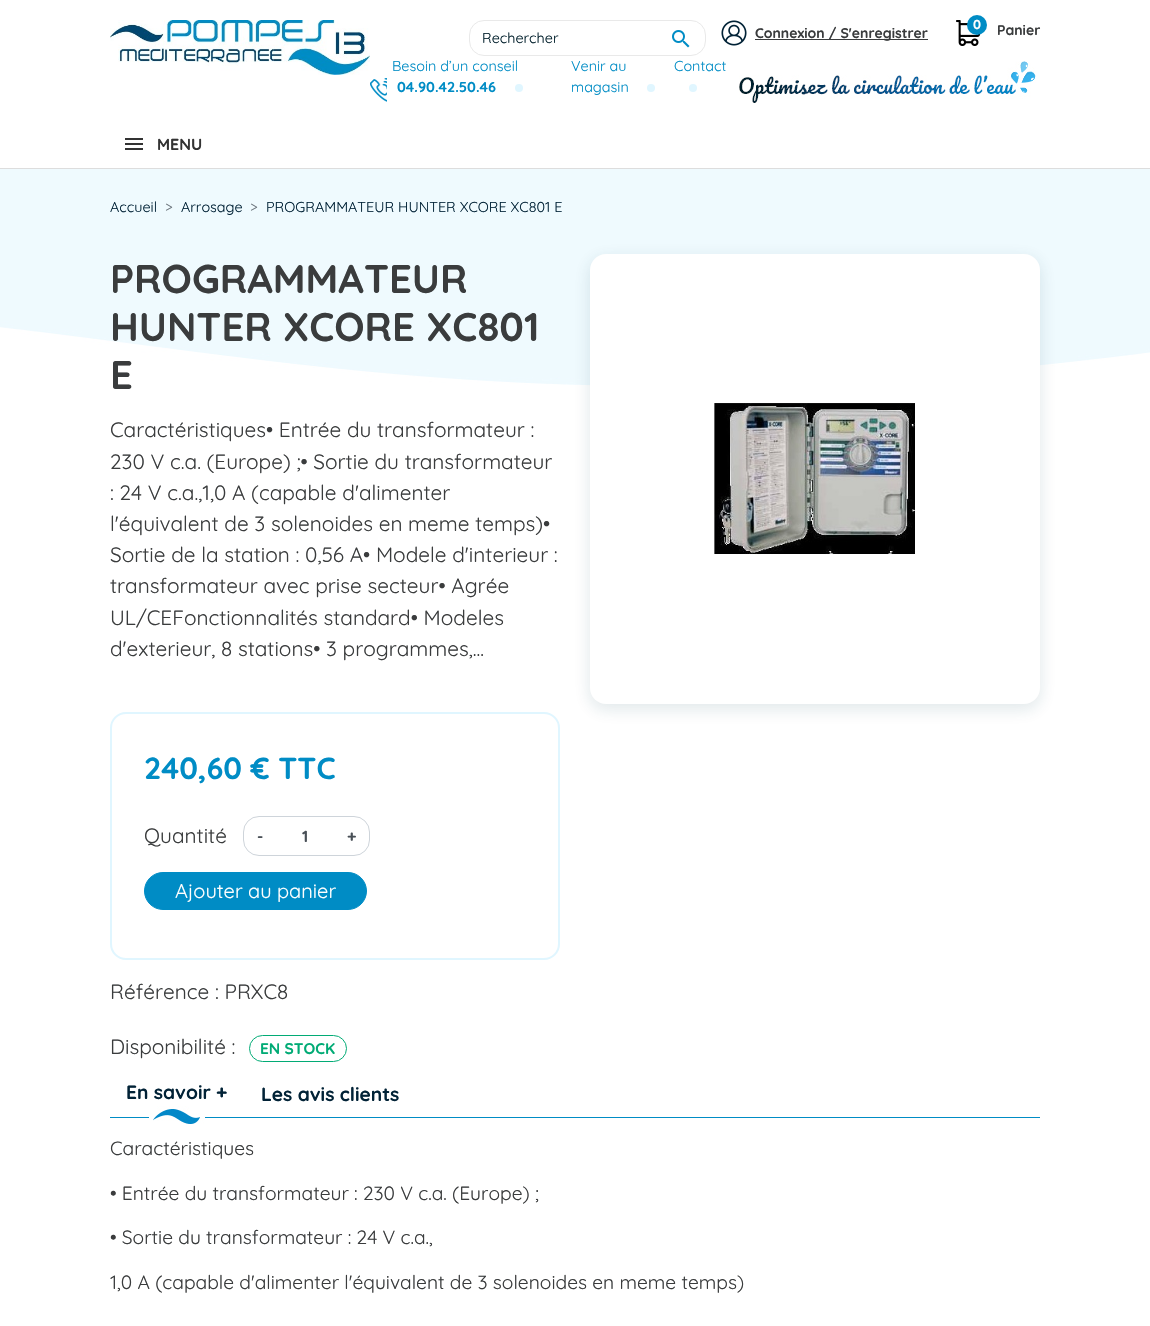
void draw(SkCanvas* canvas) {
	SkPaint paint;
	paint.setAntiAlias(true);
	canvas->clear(0xffffffff);
	paint.setColor(0xffdddddd);
	canvas->drawRect(SkRect::MakeXYWH(0, 168, 1150, 1), paint);
	canvas->drawImageRect(SkImages::DeferredFromEncodedData(SkData::MakeFromFileName("img1.png")), SkRect::MakeXYWH(110, 20, 260, 55), SkSamplingOptions());
	paint.setStroke(true);
	paint.setStrokeWidth(1);
	paint.setColor(0xffe9e9e9);
	canvas->drawRoundRect(SkRect::MakeXYWH(469.5, 20.5, 236, 35), 14.5, 14.5, paint);
	SkFont f1(fontMgr->matchFamilyStyle("Quicksand", SkFontStyle::Normal()), 14.4);
	f1.setSubpixel(true);
	paint.setStroke(false);
	paint.setColor(0xff001e2a);
	canvas->drawString("Rechercher", 482, 43, f1, paint);
	canvas->drawImageRect(SkImages::DeferredFromEncodedData(SkData::MakeFromFileName("img2.png")), SkRect::MakeXYWH(672, 30, 18, 18), SkSamplingOptions());
	canvas->drawImageRect(SkImages::DeferredFromEncodedData(SkData::MakeFromFileName("img3.png")), SkRect::MakeXYWH(721, 20, 26, 26), SkSamplingOptions());
	paint.setColor(0xff3a3c3d);
	canvas->drawRect(SkRect::MakeXYWH(755, 39, 173, 1), paint);
	SkFont f2(fontMgr->matchFamilyStyle("Quicksand", SkFontStyle::Bold()), 14);
	f2.setSubpixel(true);
	canvas->drawString("Connexion / S'enregistrer", 755, 38, f2, paint);
	canvas->drawImageRect(SkImages::DeferredFromEncodedData(SkData::MakeFromFileName("img4.png")), SkRect::MakeXYWH(956, 20, 25, 26), SkSamplingOptions());
	paint.setColor(0xff008cc5);
	canvas->drawCircle(977, 25, 10, paint);
	SkFont f3(fontMgr->matchFamilyStyle("Quicksand", SkFontStyle::Bold()), 13);
	f3.setSubpixel(true);
	paint.setColor(0xffffffff);
	canvas->drawString("0", 973, 29, f3, paint);
	paint.setColor(0xff3a3c3d);
	canvas->drawString("Panier", 997, 35, f2, paint);
	canvas->drawImageRect(SkImages::DeferredFromEncodedData(SkData::MakeFromFileName("img5.png")), SkRect::MakeXYWH(370, 78, 17, 24), SkSamplingOptions());
	paint.setColor(0xff008cc5);
	canvas->drawString("Besoin d’un conseil", 392, 71, f1, paint);
	SkFont f4(fontMgr->matchFamilyStyle("Quicksand", SkFontStyle::Bold()), 14.4);
	f4.setSubpixel(true);
	canvas->drawString("04.90.42.50.46", 397, 92, f4, paint);
	paint.setColor(0xffe0f6ff);
	canvas->drawCircle(519, 88, 4, paint);
	paint.setColor(0xff008cc5);
	canvas->drawString("Venir au", 571, 71, f1, paint);
	canvas->drawString("magasin", 571, 92, f1, paint);
	paint.setColor(0xffe0f6ff);
	canvas->drawCircle(651, 88, 4, paint);
	paint.setColor(0xff008cc5);
	canvas->drawString("Contact", 674, 71, f1, paint);
	paint.setColor(0xffe0f6ff);
	canvas->drawCircle(693, 88, 4, paint);
	canvas->drawImageRect(SkImages::DeferredFromEncodedData(SkData::MakeFromFileName("img6.png")), SkRect::MakeXYWH(739, 61, 297, 42), SkSamplingOptions());
	paint.setColor(0xff333333);
	canvas->drawRect(SkRect::MakeXYWH(125, 138, 18, 2), paint);
	canvas->drawRect(SkRect::MakeXYWH(125, 143, 18, 2), paint);
	canvas->drawRect(SkRect::MakeXYWH(125, 148, 18, 2), paint);
	SkFont f5(fontMgr->matchFamilyStyle("Quicksand", SkFontStyle::Bold()), 16);
	f5.setSubpixel(true);
	canvas->drawString("MENU", 157, 150, f5, paint);
	canvas->drawImageRect(SkImages::DeferredFromEncodedData(SkData::MakeFromFileName("img7.png")), SkRect::MakeXYWH(0, 169, 1150, 217), SkSamplingOptions());
	paint.setColor(0xff012236);
	canvas->drawString("Accueil", 110, 212, f1, paint);
	paint.setColor(0xff6c757d);
	canvas->drawString(">", 165, 212, f1, paint);
	paint.setColor(0xff012236);
	canvas->drawString("Arrosage", 181, 212, f1, paint);
	paint.setColor(0xff6c757d);
	canvas->drawString(">", 250, 212, f1, paint);
	paint.setColor(0xff012236);
	canvas->drawString("PROGRAMMATEUR HUNTER XCORE XC801 E", 266, 212, f1, paint);
	SkFont f6(fontMgr->matchFamilyStyle("Quicksand", SkFontStyle::Bold()), 40);
	f6.setSubpixel(true);
	paint.setColor(0xff3a3c3d);
	canvas->drawString("PROGRAMMATEUR", 110, 293, f6, paint);
	canvas->drawString("HUNTER XCORE XC801", 110, 341, f6, paint);
	canvas->drawString("E", 110, 389, f6, paint);
	SkFont f7(fontMgr->matchFamilyStyle("Quicksand", SkFontStyle::Normal()), 20.8);
	f7.setSubpixel(true);
	canvas->drawString("Caractéristiques• Entrée du transformateur :", 110, 437, f7, paint);
	canvas->drawString("230 V c.a. (Europe) ;• Sortie du transformateur", 110, 469, f7, paint);
	canvas->drawString(": 24 V c.a.,1,0 A (capable d'alimenter", 110, 500, f7, paint);
	canvas->drawString("l'équivalent de 3 solenoides en meme temps)•", 110, 531, f7, paint);
	canvas->drawString("Sortie de la station : 0,56 A• Modele d'interieur :", 110, 562, f7, paint);
	canvas->drawString("transformateur avec prise secteur• Agrée", 110, 593, f7, paint);
	canvas->drawString("UL/CEFonctionnalités standard• Modeles", 110, 625, f7, paint);
	canvas->drawString("d'exterieur, 8 stations• 3 programmes,...", 110, 656, f7, paint);
	paint.setStroke(true);
	paint.setStrokeWidth(2);
	paint.setColor(0xffe0f6ff);
	canvas->drawRoundRect(SkRect::MakeXYWH(111, 713, 448, 246), 15, 15, paint);
	SkFont f8(fontMgr->matchFamilyStyle("Quicksand", SkFontStyle::Bold()), 30.5);
	f8.setSubpixel(true);
	paint.setStroke(false);
	paint.setColor(0xff008cc5);
	canvas->drawString("240,60 € TTC", 144, 779, f8, paint);
	paint.setColor(0xff3a3c3d);
	canvas->drawString("Quantité", 144, 843, f7, paint);
	paint.setStroke(true);
	paint.setStrokeWidth(1);
	paint.setColor(0xffced4da);
	canvas->drawRoundRect(SkRect::MakeXYWH(243.5, 816.5, 126, 39), 15.5, 15.5, paint);
	paint.setStroke(false);
	paint.setColor(0xff495057);
	canvas->drawString("-", 257, 842, f5, paint);
	canvas->drawString("1", 302, 842, f5, paint);
	canvas->drawString("+", 347, 842, f5, paint);
	paint.setColor(0xff008cc5);
	canvas->drawRoundRect(SkRect::MakeXYWH(144.5, 872.5, 222, 37), 18.5, 18.5, paint);
	paint.setStroke(true);
	canvas->drawRoundRect(SkRect::MakeXYWH(144.5, 872.5, 222, 37), 18.5, 18.5, paint);
	SkFont f9(fontMgr->matchFamilyStyle("Quicksand", SkFontStyle::Normal()), 20);
	f9.setSubpixel(true);
	paint.setStroke(false);
	paint.setColor(0xffffffff);
	canvas->drawString("Ajouter au panier", 175, 898, f9, paint);
	paint.setColor(0xff3a3c3d);
	canvas->drawString("Référence : PRXC8", 110, 999, f7, paint);
	canvas->drawString("Disponibilité :", 110, 1054, f7, paint);
	paint.setStroke(true);
	paint.setColor(0xff01ab75);
	canvas->drawRoundRect(SkRect::MakeXYWH(249.5, 1035.5, 97, 26), 13, 13, paint);
	SkFont f10(fontMgr->matchFamilyStyle("Quicksand", SkFontStyle::Bold()), 15.5);
	f10.setSubpixel(true);
	paint.setStroke(false);
	canvas->drawString("EN STOCK", 260, 1054, f10, paint);
	paint.setColor(0x1f12475c);
	paint.setMaskFilter(SkMaskFilter::MakeBlur(kNormal_SkBlurStyle, 8));
	canvas->drawRoundRect(SkRect::MakeXYWH(589, 258, 452, 452), 17, 17, paint);
	paint.setMaskFilter(nullptr);
	paint.setColor(0xffffffff);
	canvas->drawRoundRect(SkRect::MakeXYWH(590, 254, 450, 450), 16, 16, paint);
	canvas->drawImageRect(SkImages::DeferredFromEncodedData(SkData::MakeFromFileName("img8.png")), SkRect::MakeXYWH(714, 403, 201, 152), SkSamplingOptions());
	paint.setColor(0xff008cc5);
	canvas->drawRect(SkRect::MakeXYWH(110, 1117, 930, 1), paint);
	SkFont f11(fontMgr->matchFamilyStyle("Quicksand", SkFontStyle::Bold()), 19.2);
	f11.setSubpixel(true);
	paint.setColor(0xff012236);
	canvas->drawString("En savoir +", 126, 1099, f11, paint);
	canvas->drawImageRect(SkImages::DeferredFromEncodedData(SkData::MakeFromFileName("img9.png")), SkRect::MakeXYWH(149, 1106, 56, 18), SkSamplingOptions());
	canvas->drawString("Les avis clients", 261, 1101, f11, paint);
	SkFont f12(fontMgr->matchFamilyStyle("Quicksand", SkFontStyle::Normal()), 19.2);
	f12.setSubpixel(true);
	paint.setColor(0xff3a3c3d);
	canvas->drawString("Caractéristiques", 110, 1155, f12, paint);
	canvas->drawString("• Entrée du transformateur : 230 V c.a. (Europe) ;", 110, 1200, f12, paint);
	canvas->drawString("• Sortie du transformateur : 24 V c.a.,", 110, 1244, f12, paint);
	canvas->drawString("1,0 A (capable d'alimenter l'équivalent de 3 solenoides en meme temps)", 110, 1289, f12, paint);
}
